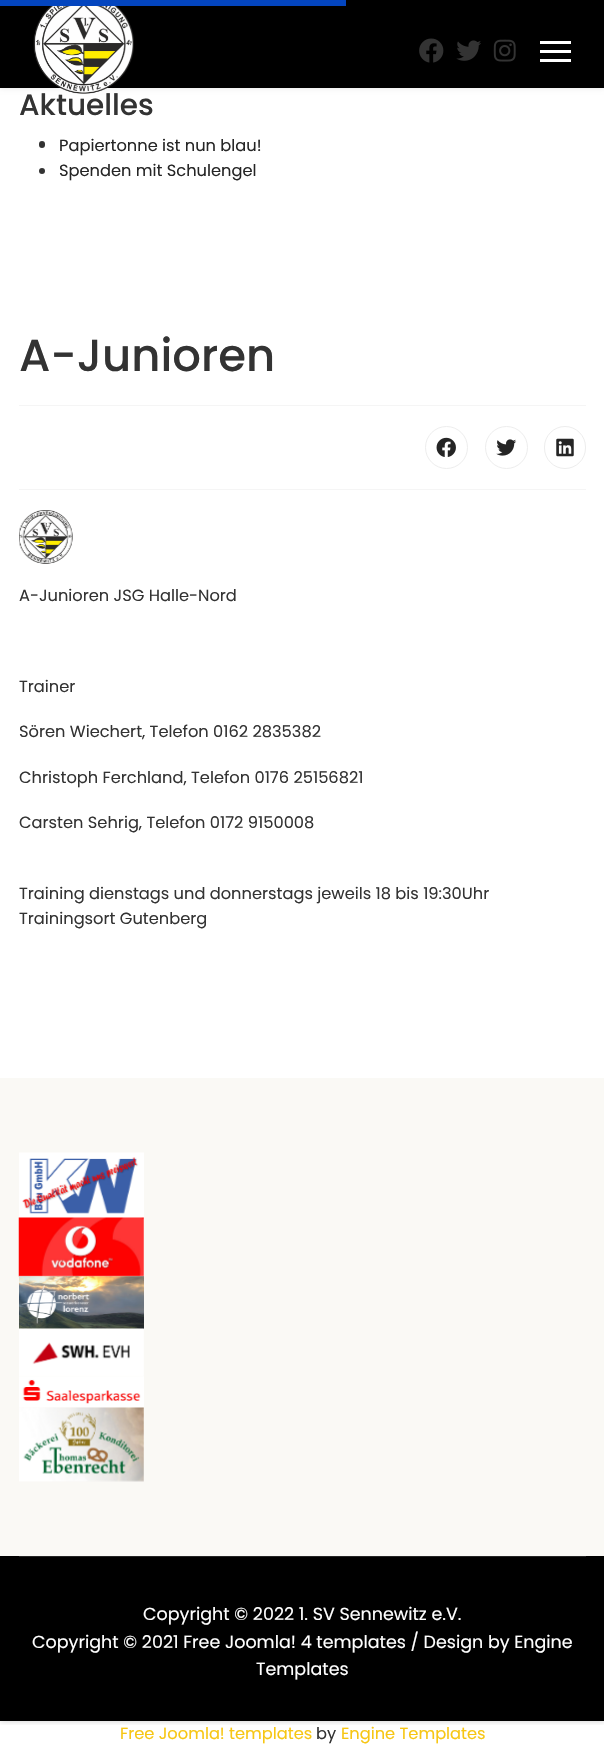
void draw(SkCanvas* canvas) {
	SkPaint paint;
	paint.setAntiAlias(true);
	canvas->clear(0xffffffff);
	canvas->save();
	canvas->clipRect(SkRect::MakeXYWH(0, 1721, 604, 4));
	paint.setColor(0x33000000);
	paint.setMaskFilter(SkMaskFilter::MakeBlur(kNormal_SkBlurStyle, 3));
	canvas->drawRect(SkRect::MakeXYWH(0, 0, 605, 1721), paint);
	paint.setMaskFilter(nullptr);
	canvas->restore();
	paint.setColor(0x1a000000);
	paint.setMaskFilter(SkMaskFilter::MakeBlur(kNormal_SkBlurStyle, 2.5));
	canvas->drawRect(SkRect::MakeXYWH(0, 0, 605, 88), paint);
	paint.setMaskFilter(nullptr);
	paint.setColor(0xff000000);
	canvas->drawRect(SkRect::MakeXYWH(0, 0, 604, 88), paint);
	paint.setColor(0xff0345bf);
	canvas->drawRect(SkRect::MakeXYWH(0, 0, 346, 6), paint);
	SkFont f1(fontMgr->matchFamilyStyle("Poppins", SkFontStyle(500, SkFontStyle::kNormal_Width, SkFontStyle::kUpright_Slant)), 29.5);
	f1.setSubpixel(true);
	paint.setColor(0xff333333);
	canvas->drawString("Aktuelles", 19, 115, f1, paint);
	canvas->drawImageRect(SkImages::DeferredFromEncodedData(SkData::MakeFromFileName("img1.png")), SkRect::MakeXYWH(33, 6, 101, 88), SkSamplingOptions());
	canvas->drawImageRect(SkImages::DeferredFromEncodedData(SkData::MakeFromFileName("img2.png")), SkRect::MakeXYWH(419, 38, 25, 25), SkSamplingOptions());
	canvas->drawImageRect(SkImages::DeferredFromEncodedData(SkData::MakeFromFileName("img3.png")), SkRect::MakeXYWH(456, 40, 25, 21), SkSamplingOptions());
	canvas->drawImageRect(SkImages::DeferredFromEncodedData(SkData::MakeFromFileName("img4.png")), SkRect::MakeXYWH(493, 39, 23, 23), SkSamplingOptions());
	paint.setColor(0xffffffff);
	canvas->drawRect(SkRect::MakeXYWH(540, 41, 31, 3), paint);
	canvas->drawRect(SkRect::MakeXYWH(540, 50, 31, 3), paint);
	canvas->drawRect(SkRect::MakeXYWH(540, 59, 31, 3), paint);
	paint.setColor(0xff333333);
	canvas->drawRoundRect(SkRect::MakeXYWH(39, 141, 6, 7), 3, 3, paint);
	SkFont f2(fontMgr->matchFamilyStyle("Poppins", SkFontStyle::Normal()), 16.25);
	f2.setSubpixel(true);
	paint.setColor(0xff252525);
	canvas->drawString("Papiertonne ist nun blau!", 59, 151, f2, paint);
	paint.setColor(0xff333333);
	canvas->drawCircle(42, 171, 3, paint);
	paint.setColor(0xff252525);
	canvas->drawString("Spenden mit Schulengel", 59, 176, f2, paint);
	SkFont f3(fontMgr->matchFamilyStyle("Poppins", SkFontStyle(500, SkFontStyle::kNormal_Width, SkFontStyle::kUpright_Slant)), 45);
	f3.setSubpixel(true);
	paint.setColor(0xff333333);
	canvas->drawString("A-Junioren", 19, 371, f3, paint);
	paint.setColor(0xfff5f5f5);
	canvas->drawRect(SkRect::MakeXYWH(19, 405, 567, 1), paint);
	canvas->drawRect(SkRect::MakeXYWH(19, 489, 567, 1), paint);
	paint.setStroke(true);
	paint.setStrokeWidth(1);
	paint.setColor(0xffededed);
	canvas->drawCircle(446.5, 447.5, 21, paint);
	canvas->drawImageRect(SkImages::DeferredFromEncodedData(SkData::MakeFromFileName("img5.png")), SkRect::MakeXYWH(436, 437, 20, 20), SkSamplingOptions());
	canvas->drawCircle(506.5, 447.5, 21, paint);
	canvas->drawImageRect(SkImages::DeferredFromEncodedData(SkData::MakeFromFileName("img6.png")), SkRect::MakeXYWH(496, 439, 21, 17), SkSamplingOptions());
	canvas->drawRoundRect(SkRect::MakeXYWH(544.5, 426.5, 41, 42), 20.5, 20.5, paint);
	canvas->drawImageRect(SkImages::DeferredFromEncodedData(SkData::MakeFromFileName("img7.png")), SkRect::MakeXYWH(556, 438, 18, 19), SkSamplingOptions());
	canvas->drawImageRect(SkImages::DeferredFromEncodedData(SkData::MakeFromFileName("img8.png")), SkRect::MakeXYWH(19, 510, 54, 54), SkSamplingOptions());
	paint.setStroke(false);
	paint.setColor(0xff333333);
	canvas->drawString("A-Junioren JSG Halle-Nord", 19, 601, f2, paint);
	canvas->drawString("Trainer", 19, 692, f2, paint);
	canvas->drawString("Sören Wiechert, Telefon 0162 2835382", 19, 737, f2, paint);
	canvas->drawString("Christoph Ferchland, Telefon 0176 25156821", 19, 783, f2, paint);
	canvas->drawString("Carsten Sehrig, Telefon 0172 9150008", 19, 828, f2, paint);
	canvas->drawString("Training dienstags und donnerstags jeweils 18 bis 19:30Uhr", 19, 899, f2, paint);
	canvas->drawString("Trainingsort Gutenberg", 19, 924, f2, paint);
	paint.setColor(0xfffaf9f5);
	canvas->drawRect(SkRect::MakeXYWH(0, 1078, 604, 478), paint);
	canvas->drawImageRect(SkImages::DeferredFromEncodedData(SkData::MakeFromFileName("img9.png")), SkRect::MakeXYWH(19, 1152, 125, 66), SkSamplingOptions());
	canvas->drawImageRect(SkImages::DeferredFromEncodedData(SkData::MakeFromFileName("img10.png")), SkRect::MakeXYWH(18, 1217, 126, 60), SkSamplingOptions());
	canvas->drawImageRect(SkImages::DeferredFromEncodedData(SkData::MakeFromFileName("img11.png")), SkRect::MakeXYWH(19, 1276, 125, 53), SkSamplingOptions());
	canvas->drawImageRect(SkImages::DeferredFromEncodedData(SkData::MakeFromFileName("img12.png")), SkRect::MakeXYWH(19, 1328, 125, 48), SkSamplingOptions());
	canvas->drawImageRect(SkImages::DeferredFromEncodedData(SkData::MakeFromFileName("img13.png")), SkRect::MakeXYWH(19, 1376, 125, 32), SkSamplingOptions());
	canvas->drawImageRect(SkImages::DeferredFromEncodedData(SkData::MakeFromFileName("img14.png")), SkRect::MakeXYWH(19, 1407, 125, 75), SkSamplingOptions());
	paint.setColor(0xff000000);
	canvas->drawRect(SkRect::MakeXYWH(0, 1556, 604, 165), paint);
	paint.setColor(0xff252525);
	canvas->drawRect(SkRect::MakeXYWH(19, 1556, 567, 1), paint);
	SkFont f4(fontMgr->matchFamilyStyle("Poppins", SkFontStyle::Normal()), 17.5);
	f4.setSubpixel(true);
	paint.setColor(0xffffffff);
	canvas->drawString("Copyright © 2022 1. SV Sennewitz e.V.", 143, 1620, f4, paint);
	canvas->drawString("Copyright © 2021 Free Joomla! 4 templates / Design by Engine", 32, 1648, f4, paint);
	canvas->drawString("Templates", 256, 1675, f4, paint);
	paint.setColor(0xfff7c613);
	canvas->drawString("Free Joomla! templates", 120, 1739, f2, paint);
	paint.setColor(0xff333333);
	canvas->drawString("by", 316, 1739, f2, paint);
	paint.setColor(0xfff7c613);
	canvas->drawString("Engine Templates", 341, 1739, f2, paint);
}
